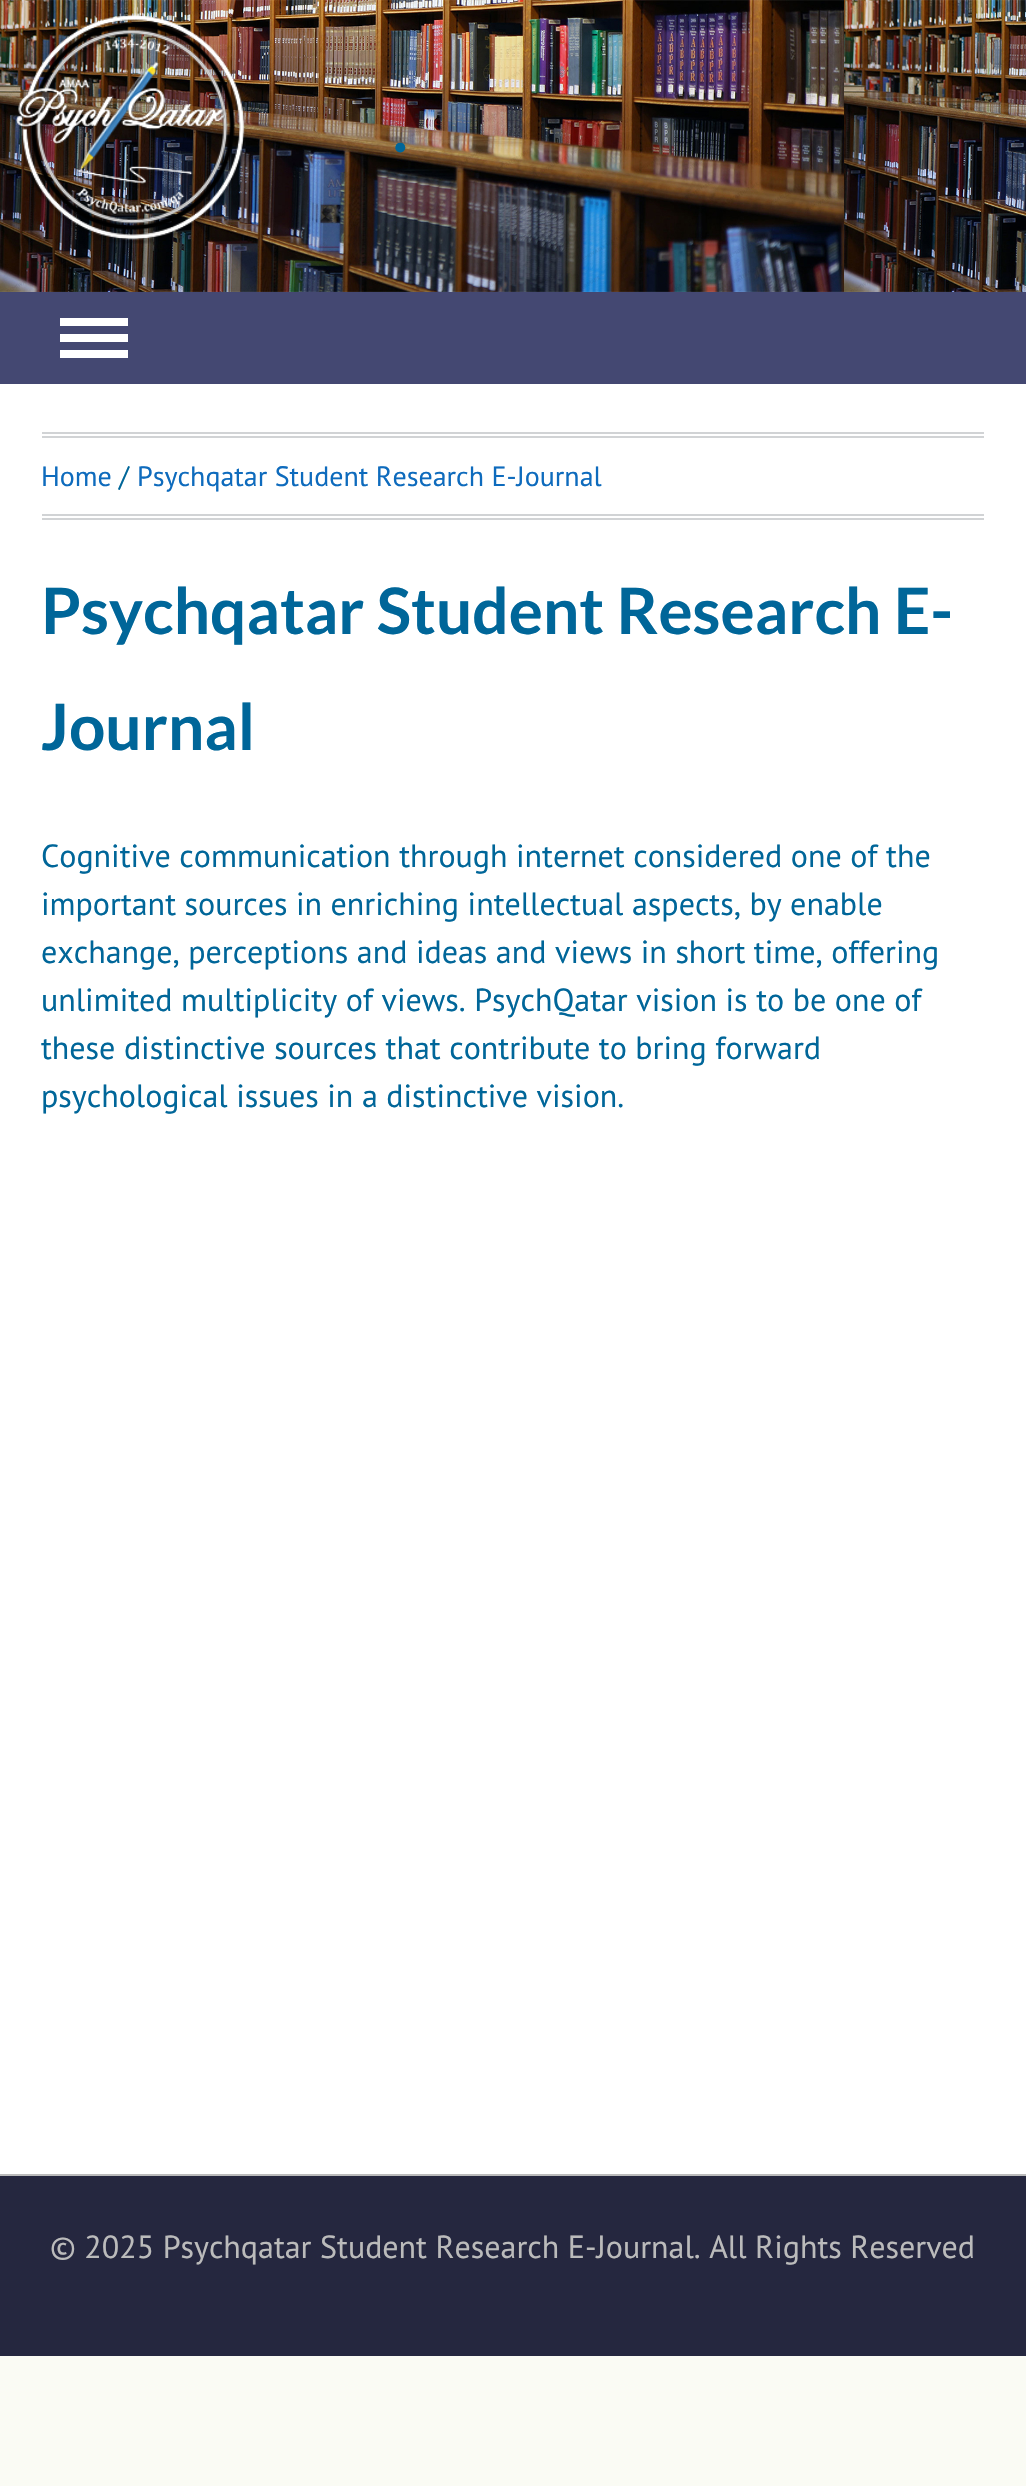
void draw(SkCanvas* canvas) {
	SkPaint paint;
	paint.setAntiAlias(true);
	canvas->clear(0xfffafbf4);
	canvas->drawImageRect(SkImages::DeferredFromEncodedData(SkData::MakeFromFileName("img1.png")), SkRect::MakeXYWH(0, 0, 1026, 292), SkSamplingOptions());
	canvas->drawImageRect(SkImages::DeferredFromEncodedData(SkData::MakeFromFileName("img2.png")), SkRect::MakeXYWH(16, 14, 230, 230), SkSamplingOptions());
	SkFont f1(fontMgr->matchFamilyStyle("Lato", SkFontStyle::Bold()), 65);
	f1.setSubpixel(true);
	paint.setColor(0xff006699);
	canvas->drawString(".", 393, 152, f1, paint);
	paint.setColor(0xff444872);
	canvas->drawRect(SkRect::MakeXYWH(0, 292, 1026, 92), paint);
	paint.setColor(0xffffffff);
	canvas->drawRect(SkRect::MakeXYWH(60, 318, 68, 8), paint);
	canvas->drawRect(SkRect::MakeXYWH(60, 334, 68, 8), paint);
	canvas->drawRect(SkRect::MakeXYWH(60, 350, 68, 8), paint);
	canvas->drawRect(SkRect::MakeXYWH(0, 384, 1026, 1790), paint);
	paint.setColor(0xffd1d3d5);
	canvas->drawRect(SkRect::MakeXYWH(42, 432, 942, 2), paint);
	canvas->drawRect(SkRect::MakeXYWH(42, 436, 942, 2), paint);
	canvas->drawRect(SkRect::MakeXYWH(42, 514, 942, 2), paint);
	canvas->drawRect(SkRect::MakeXYWH(42, 518, 942, 2), paint);
	SkFont f2(fontMgr->matchFamilyStyle("PT Sans", SkFontStyle::Normal()), 28);
	f2.setSubpixel(true);
	paint.setColor(0xff0e6bbd);
	canvas->drawString("Home", 41, 486, f2, paint);
	paint.setColor(0xff006699);
	canvas->drawString("/", 119, 486, f2, paint);
	paint.setColor(0xff0e6bbd);
	canvas->drawString("Psychqatar Student Research E-Journal", 137, 486, f2, paint);
	SkFont f3(fontMgr->matchFamilyStyle("Lato", SkFontStyle::Bold()), 64);
	f3.setSubpixel(true);
	paint.setColor(0xff006699);
	canvas->drawString("Psychqatar Student Research E-", 41, 634, f3, paint);
	canvas->drawString("Journal", 41, 750, f3, paint);
	SkFont f4(fontMgr->matchFamilyStyle("PT Sans", SkFontStyle::Normal()), 32);
	f4.setSubpixel(true);
	canvas->drawString("Cognitive communication through internet considered one of the", 41, 867, f4, paint);
	canvas->drawString("important sources in enriching intellectual aspects, by enable", 41, 915, f4, paint);
	canvas->drawString("exchange, perceptions and ideas and views in short time, offering", 41, 963, f4, paint);
	canvas->drawString("unlimited multiplicity of views. PsychQatar vision is to be one of", 41, 1011, f4, paint);
	canvas->drawString("these distinctive sources that contribute to bring forward", 41, 1059, f4, paint);
	canvas->drawString("psychological issues in a distinctive vision.", 41, 1107, f4, paint);
	paint.setColor(0xff25273f);
	canvas->drawRect(SkRect::MakeXYWH(0, 2176, 1026, 180), paint);
	paint.setColor(0xffbbbbbb);
	canvas->drawRect(SkRect::MakeXYWH(0, 2174, 1026, 2), paint);
	canvas->drawString("© 2025 Psychqatar Student Research E-Journal. All Rights Reserved", 50, 2258, f4, paint);
}
